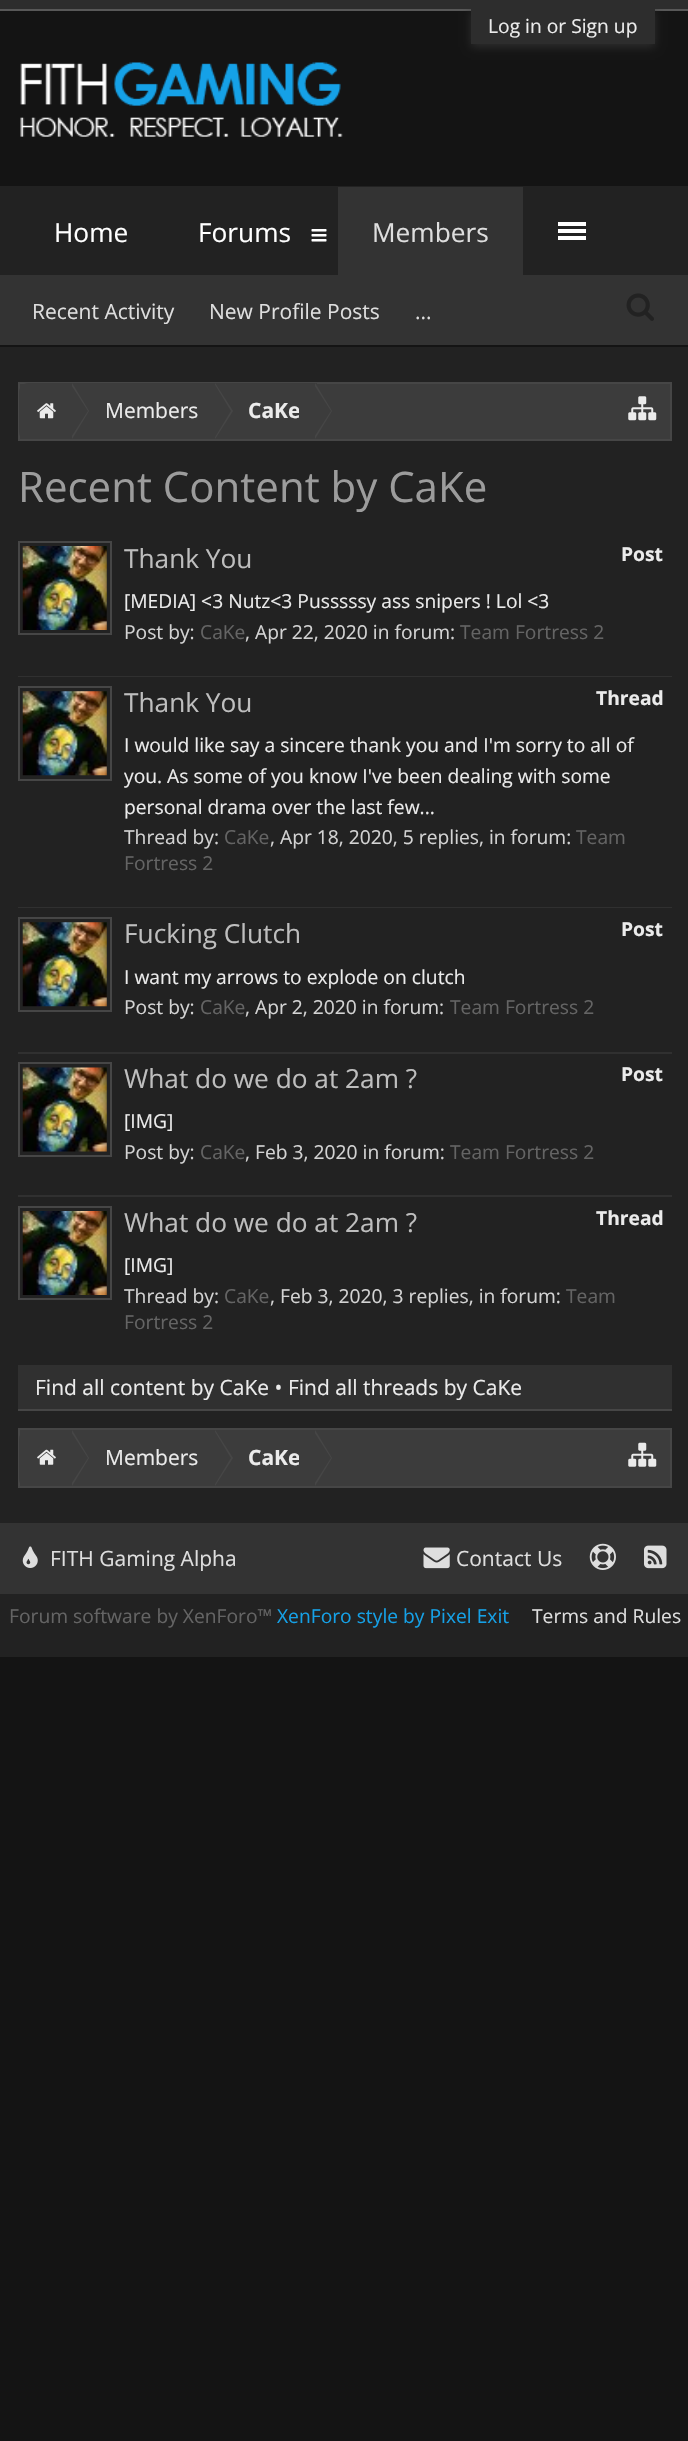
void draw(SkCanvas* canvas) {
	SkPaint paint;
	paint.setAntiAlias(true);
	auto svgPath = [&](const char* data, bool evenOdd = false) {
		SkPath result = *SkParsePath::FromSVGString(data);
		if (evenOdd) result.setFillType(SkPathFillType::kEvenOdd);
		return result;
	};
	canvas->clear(0xff141414);
	paint.setColor(0xff2d2d2d);
	canvas->drawRect(SkRect::MakeXYWH(0, 0, 688, 9), paint);
	paint.setColor(0xff585858);
	canvas->drawRect(SkRect::MakeXYWH(0, 9, 688, 2), paint);
	paint.setColor(0xff2d2d2d);
	paint.setMaskFilter(SkMaskFilter::MakeBlur(kNormal_SkBlurStyle, 4.5));
	canvas->drawRect(SkRect::MakeXYWH(471, 12, 184, 35), paint);
	paint.setMaskFilter(nullptr);
	canvas->drawRect(SkRect::MakeXYWH(471, 9, 184, 35), paint);
	SkFont f1(fontMgr->matchFamilyStyle("Open Sans", SkFontStyle::Normal()), 19.25);
	f1.setSubpixel(true);
	paint.setColor(0xffebebeb);
	canvas->drawString("Log in or Sign up", 488, 33, f1, paint);
	paint.setColor(0xff222222);
	canvas->drawRect(SkRect::MakeXYWH(0, 186, 688, 89), paint);
	canvas->drawImageRect(SkImages::DeferredFromEncodedData(SkData::MakeFromFileName("img1.png")), SkRect::MakeXYWH(20, 62, 323, 75), SkSamplingOptions());
	paint.setColor(0xff333333);
	canvas->drawRect(SkRect::MakeXYWH(338, 187, 185, 88), paint);
	SkFont f2(fontMgr->matchFamilyStyle("Open Sans", SkFontStyle::Normal()), 26.25);
	f2.setSubpixel(true);
	paint.setColor(0xffdedede);
	canvas->drawString("Members", 372, 242, f2, paint);
	paint.setColor(0xff333333);
	canvas->drawRect(SkRect::MakeXYWH(0, 275, 688, 70), paint);
	SkFont f3(fontMgr->matchFamilyStyle("Open Sans", SkFontStyle::Normal()), 21);
	f3.setSubpixel(true);
	paint.setColor(0xffdedede);
	canvas->drawString("Recent Activity", 32, 319, f3, paint);
	canvas->drawString("New Profile Posts", 209, 319, f3, paint);
	canvas->drawString("...", 415, 319, f3, paint);
	paint.setColor(0xffffffff);
	canvas->drawRect(SkRect::MakeXYWH(558, 222, 28, 4), paint);
	canvas->drawRect(SkRect::MakeXYWH(558, 229, 28, 4), paint);
	canvas->drawRect(SkRect::MakeXYWH(558, 236, 28, 4), paint);
	canvas->drawString("Home", 54, 242, f2, paint);
	canvas->drawString("Forums", 198, 242, f2, paint);
	canvas->drawImageRect(SkImages::DeferredFromEncodedData(SkData::MakeFromFileName("img2.png")), SkRect::MakeXYWH(311, 229, 16, 13), SkSamplingOptions());
	canvas->drawImageRect(SkImages::DeferredFromEncodedData(SkData::MakeFromFileName("img3.png")), SkRect::MakeXYWH(626, 293, 28, 28), SkSamplingOptions());
	paint.setColor(0xff222222);
	canvas->drawRect(SkRect::MakeXYWH(0, 347, 688, 1176), paint);
	paint.setColor(0xff3c3c3c);
	canvas->drawRect(SkRect::MakeXYWH(19, 383, 652, 57), paint);
	paint.setStroke(true);
	paint.setStrokeWidth(2);
	paint.setColor(0xff464646);
	canvas->drawRect(SkRect::MakeXYWH(19, 383, 652, 57), paint);
	canvas->save();
	canvas->clipRect(SkRect::MakeXYWH(19, 383, 651, 56));
	paint.setStroke(false);
	paint.setColor(0xff3c3c3c);
	canvas->drawPath(svgPath("M28 383H74V441H28C23 441 19 437 19 432V392C19 387 23 383 28 383Z"), paint);
	canvas->restore();
	canvas->drawImageRect(SkImages::DeferredFromEncodedData(SkData::MakeFromFileName("img4.png")), SkRect::MakeXYWH(37, 403, 19, 16), SkSamplingOptions());
	canvas->drawRect(SkRect::MakeXYWH(74, 383, 243, 1), paint);
	paint.setColor(0xff464646);
	canvas->drawPath(svgPath("M72 439V383L89 411Z"), paint);
	paint.setColor(0xff3c3c3c);
	canvas->drawPath(svgPath("M70 439V383L88 411Z"), paint);
	paint.setColor(0xffebebeb);
	canvas->drawString("Members", 105, 418, f3, paint);
	paint.setColor(0xff464646);
	canvas->drawPath(svgPath("M215 439V383L233 411Z"), paint);
	paint.setColor(0xff3c3c3c);
	canvas->drawPath(svgPath("M214 439V383L231 411Z"), paint);
	canvas->save();
	canvas->clipRect(SkRect::MakeXYWH(249, 383, 50, 56));
	SkFont f4(fontMgr->matchFamilyStyle("Open Sans", SkFontStyle::Bold()), 21);
	f4.setSubpixel(true);
	paint.setColor(0xffebebeb);
	canvas->drawString("CaKe", 248, 418, f4, paint);
	canvas->restore();
	paint.setColor(0xff464646);
	canvas->drawPath(svgPath("M315 439V383L332 411Z"), paint);
	paint.setColor(0xff3c3c3c);
	canvas->drawPath(svgPath("M313 439V383L331 411Z"), paint);
	canvas->drawImageRect(SkImages::DeferredFromEncodedData(SkData::MakeFromFileName("img5.png")), SkRect::MakeXYWH(628, 396, 29, 25), SkSamplingOptions());
	SkFont f5(fontMgr->matchFamilyStyle("Open Sans", SkFontStyle::Normal()), 42);
	f5.setSubpixel(true);
	paint.setColor(0xff9c9c9c);
	canvas->drawString("Recent Content by CaKe", 18, 502, f5, paint);
	paint.setColor(0xff303030);
	canvas->drawRect(SkRect::MakeXYWH(18, 676, 654, 1), paint);
	paint.setStroke(true);
	paint.setColor(0xff464646);
	canvas->drawRect(SkRect::MakeXYWH(19, 542, 92, 92), paint);
	canvas->drawImageRect(SkImages::DeferredFromEncodedData(SkData::MakeFromFileName("img6.png")), SkRect::MakeXYWH(22, 546, 85, 84), SkSamplingOptions());
	paint.setStroke(false);
	paint.setColor(0xffbebebe);
	canvas->drawString("Thank You", 124, 568, f2, paint);
	SkFont f6(fontMgr->matchFamilyStyle("Open Sans", SkFontStyle::Bold()), 19.25);
	f6.setSubpixel(true);
	paint.setColor(0xffebebeb);
	canvas->drawString("Post", 621, 561, f6, paint);
	canvas->drawString("[MEDIA] <3 Nutz<3 Pusssssy ass snipers ! Lol <3", 124, 608, f1, paint);
	paint.setColor(0xffd3d3d3);
	canvas->drawString("Post by:", 124, 639, f1, paint);
	paint.setColor(0xff646464);
	canvas->drawString("CaKe", 200, 639, f1, paint);
	paint.setColor(0xffd3d3d3);
	canvas->drawString(", Apr 22, 2020 in forum:", 245, 639, f1, paint);
	paint.setColor(0xff646464);
	canvas->drawString("Team Fortress 2", 460, 639, f1, paint);
	paint.setColor(0xff303030);
	canvas->drawRect(SkRect::MakeXYWH(18, 907, 654, 1), paint);
	paint.setStroke(true);
	paint.setColor(0xff464646);
	canvas->drawRect(SkRect::MakeXYWH(19, 687, 92, 93), paint);
	canvas->drawImageRect(SkImages::DeferredFromEncodedData(SkData::MakeFromFileName("img7.png")), SkRect::MakeXYWH(22, 691, 85, 85), SkSamplingOptions());
	paint.setStroke(false);
	paint.setColor(0xffbebebe);
	canvas->drawString("Thank You", 124, 712, f2, paint);
	paint.setColor(0xffebebeb);
	canvas->drawString("Thread", 596, 705, f6, paint);
	canvas->drawString("I would like say a sincere thank you and I'm sorry to all of", 124, 752, f1, paint);
	canvas->drawString("you. As some of you know I've been dealing with some", 124, 783, f1, paint);
	canvas->drawString("personal drama over the last few...", 124, 814, f1, paint);
	paint.setColor(0xffd3d3d3);
	canvas->drawString("Thread by:", 124, 844, f1, paint);
	paint.setColor(0xff646464);
	canvas->drawString("CaKe", 224, 844, f1, paint);
	paint.setColor(0xffd3d3d3);
	canvas->drawString(", Apr 18, 2020, 5 replies, in forum:", 270, 844, f1, paint);
	paint.setColor(0xff646464);
	canvas->drawString("Team", 576, 844, f1, paint);
	canvas->drawString("Fortress 2", 124, 870, f1, paint);
	paint.setColor(0xff303030);
	canvas->drawRect(SkRect::MakeXYWH(18, 1052, 654, 2), paint);
	paint.setStroke(true);
	paint.setColor(0xff464646);
	canvas->drawRect(SkRect::MakeXYWH(19, 918, 92, 93), paint);
	canvas->drawImageRect(SkImages::DeferredFromEncodedData(SkData::MakeFromFileName("img7.png")), SkRect::MakeXYWH(22, 922, 85, 85), SkSamplingOptions());
	paint.setStroke(false);
	paint.setColor(0xffbebebe);
	canvas->drawString("Fucking Clutch", 124, 943, f2, paint);
	paint.setColor(0xffebebeb);
	canvas->drawString("Post", 621, 936, f6, paint);
	canvas->drawString("I want my arrows to explode on clutch", 124, 984, f1, paint);
	paint.setColor(0xffd3d3d3);
	canvas->drawString("Post by:", 124, 1014, f1, paint);
	paint.setColor(0xff646464);
	canvas->drawString("CaKe", 200, 1014, f1, paint);
	paint.setColor(0xffd3d3d3);
	canvas->drawString(", Apr 2, 2020 in forum:", 245, 1014, f1, paint);
	paint.setColor(0xff646464);
	canvas->drawString("Team Fortress 2", 450, 1014, f1, paint);
	paint.setColor(0xff303030);
	canvas->drawRect(SkRect::MakeXYWH(18, 1195, 654, 2), paint);
	paint.setStroke(true);
	paint.setColor(0xff464646);
	canvas->drawRect(SkRect::MakeXYWH(19, 1063, 92, 93), paint);
	canvas->drawImageRect(SkImages::DeferredFromEncodedData(SkData::MakeFromFileName("img8.png")), SkRect::MakeXYWH(22, 1067, 85, 85), SkSamplingOptions());
	paint.setStroke(false);
	paint.setColor(0xffbebebe);
	canvas->drawString("What do we do at 2am ?", 124, 1088, f2, paint);
	paint.setColor(0xffebebeb);
	canvas->drawString("Post", 621, 1081, f6, paint);
	canvas->drawString("[IMG]", 124, 1128, f1, paint);
	paint.setColor(0xffd3d3d3);
	canvas->drawString("Post by:", 124, 1159, f1, paint);
	paint.setColor(0xff646464);
	canvas->drawString("CaKe", 200, 1159, f1, paint);
	paint.setColor(0xffd3d3d3);
	canvas->drawString(", Feb 3, 2020 in forum:", 245, 1159, f1, paint);
	paint.setColor(0xff646464);
	canvas->drawString("Team Fortress 2", 450, 1159, f1, paint);
	paint.setColor(0xff303030);
	canvas->drawRect(SkRect::MakeXYWH(18, 1365, 654, 44), paint);
	paint.setStroke(true);
	paint.setColor(0xff464646);
	canvas->drawRect(SkRect::MakeXYWH(19, 1207, 92, 92), paint);
	canvas->drawImageRect(SkImages::DeferredFromEncodedData(SkData::MakeFromFileName("img6.png")), SkRect::MakeXYWH(22, 1211, 85, 84), SkSamplingOptions());
	paint.setStroke(false);
	paint.setColor(0xffbebebe);
	canvas->drawString("What do we do at 2am ?", 124, 1232, f2, paint);
	paint.setColor(0xffebebeb);
	canvas->drawString("Thread", 596, 1225, f6, paint);
	canvas->drawString("[IMG]", 124, 1272, f1, paint);
	paint.setColor(0xffd3d3d3);
	canvas->drawString("Thread by:", 124, 1303, f1, paint);
	paint.setColor(0xff646464);
	canvas->drawString("CaKe", 224, 1303, f1, paint);
	paint.setColor(0xffd3d3d3);
	canvas->drawString(", Feb 3, 2020, 3 replies, in forum:", 270, 1303, f1, paint);
	paint.setColor(0xff646464);
	canvas->drawString("Team", 566, 1303, f1, paint);
	canvas->drawString("Fortress 2", 124, 1329, f1, paint);
	paint.setColor(0xff464646);
	canvas->drawRect(SkRect::MakeXYWH(18, 1409, 654, 2), paint);
	paint.setColor(0xffebebeb);
	canvas->drawString("Find all content by CaKe • Find all threads by CaKe", 35, 1395, f3, paint);
	paint.setColor(0xff3c3c3c);
	canvas->drawRect(SkRect::MakeXYWH(19, 1429, 652, 58), paint);
	paint.setStroke(true);
	paint.setColor(0xff464646);
	canvas->drawRect(SkRect::MakeXYWH(19, 1429, 652, 58), paint);
	canvas->save();
	canvas->clipRect(SkRect::MakeXYWH(19, 1430, 651, 56));
	paint.setStroke(false);
	paint.setColor(0xff3c3c3c);
	canvas->drawPath(svgPath("M28 1430H74V1488H28C23 1488 19 1484 19 1479V1439C19 1434 23 1430 28 1430Z"), paint);
	canvas->restore();
	canvas->drawImageRect(SkImages::DeferredFromEncodedData(SkData::MakeFromFileName("img9.png")), SkRect::MakeXYWH(37, 1449, 19, 16), SkSamplingOptions());
	paint.setColor(0xff464646);
	canvas->drawPath(svgPath("M72 1486V1430L89 1458Z"), paint);
	paint.setColor(0xff3c3c3c);
	canvas->drawPath(svgPath("M70 1486V1430L88 1458Z"), paint);
	paint.setColor(0xffebebeb);
	canvas->drawString("Members", 105, 1465, f3, paint);
	paint.setColor(0xff464646);
	canvas->drawPath(svgPath("M215 1486V1430L233 1458Z"), paint);
	paint.setColor(0xff3c3c3c);
	canvas->drawPath(svgPath("M214 1486V1430L231 1458Z"), paint);
	canvas->save();
	canvas->clipRect(SkRect::MakeXYWH(249, 1430, 50, 56));
	paint.setColor(0xffebebeb);
	canvas->drawString("CaKe", 248, 1465, f4, paint);
	canvas->restore();
	paint.setColor(0xff464646);
	canvas->drawPath(svgPath("M315 1486V1430L332 1458Z"), paint);
	paint.setColor(0xff3c3c3c);
	canvas->drawPath(svgPath("M313 1486V1430L331 1458Z"), paint);
	canvas->drawImageRect(SkImages::DeferredFromEncodedData(SkData::MakeFromFileName("img10.png")), SkRect::MakeXYWH(628, 1442, 29, 25), SkSamplingOptions());
	paint.setColor(0xff333333);
	canvas->drawRect(SkRect::MakeXYWH(0, 1523, 688, 71), paint);
	canvas->drawImageRect(SkImages::DeferredFromEncodedData(SkData::MakeFromFileName("img11.png")), SkRect::MakeXYWH(22, 1546, 16, 22), SkSamplingOptions());
	paint.setColor(0xffdedede);
	canvas->drawString("FITH Gaming Alpha", 50, 1566, f3, paint);
	canvas->drawImageRect(SkImages::DeferredFromEncodedData(SkData::MakeFromFileName("img12.png")), SkRect::MakeXYWH(423, 1547, 27, 22), SkSamplingOptions());
	canvas->drawString("Contact Us", 456, 1566, f3, paint);
	canvas->drawImageRect(SkImages::DeferredFromEncodedData(SkData::MakeFromFileName("img13.png")), SkRect::MakeXYWH(589, 1543, 27, 27), SkSamplingOptions());
	canvas->drawImageRect(SkImages::DeferredFromEncodedData(SkData::MakeFromFileName("img14.png")), SkRect::MakeXYWH(644, 1545, 23, 24), SkSamplingOptions());
	paint.setColor(0xff222222);
	canvas->drawRect(SkRect::MakeXYWH(0, 1594, 688, 63), paint);
	paint.setColor(0xff646464);
	canvas->drawString("Forum software by XenForo™", 9, 1623, f1, paint);
	paint.setColor(0xff15a1e7);
	canvas->drawString("XenForo style by Pixel Exit", 277, 1623, f1, paint);
	paint.setColor(0xffdedede);
	canvas->drawString("Terms and Rules", 532, 1623, f1, paint);
}
